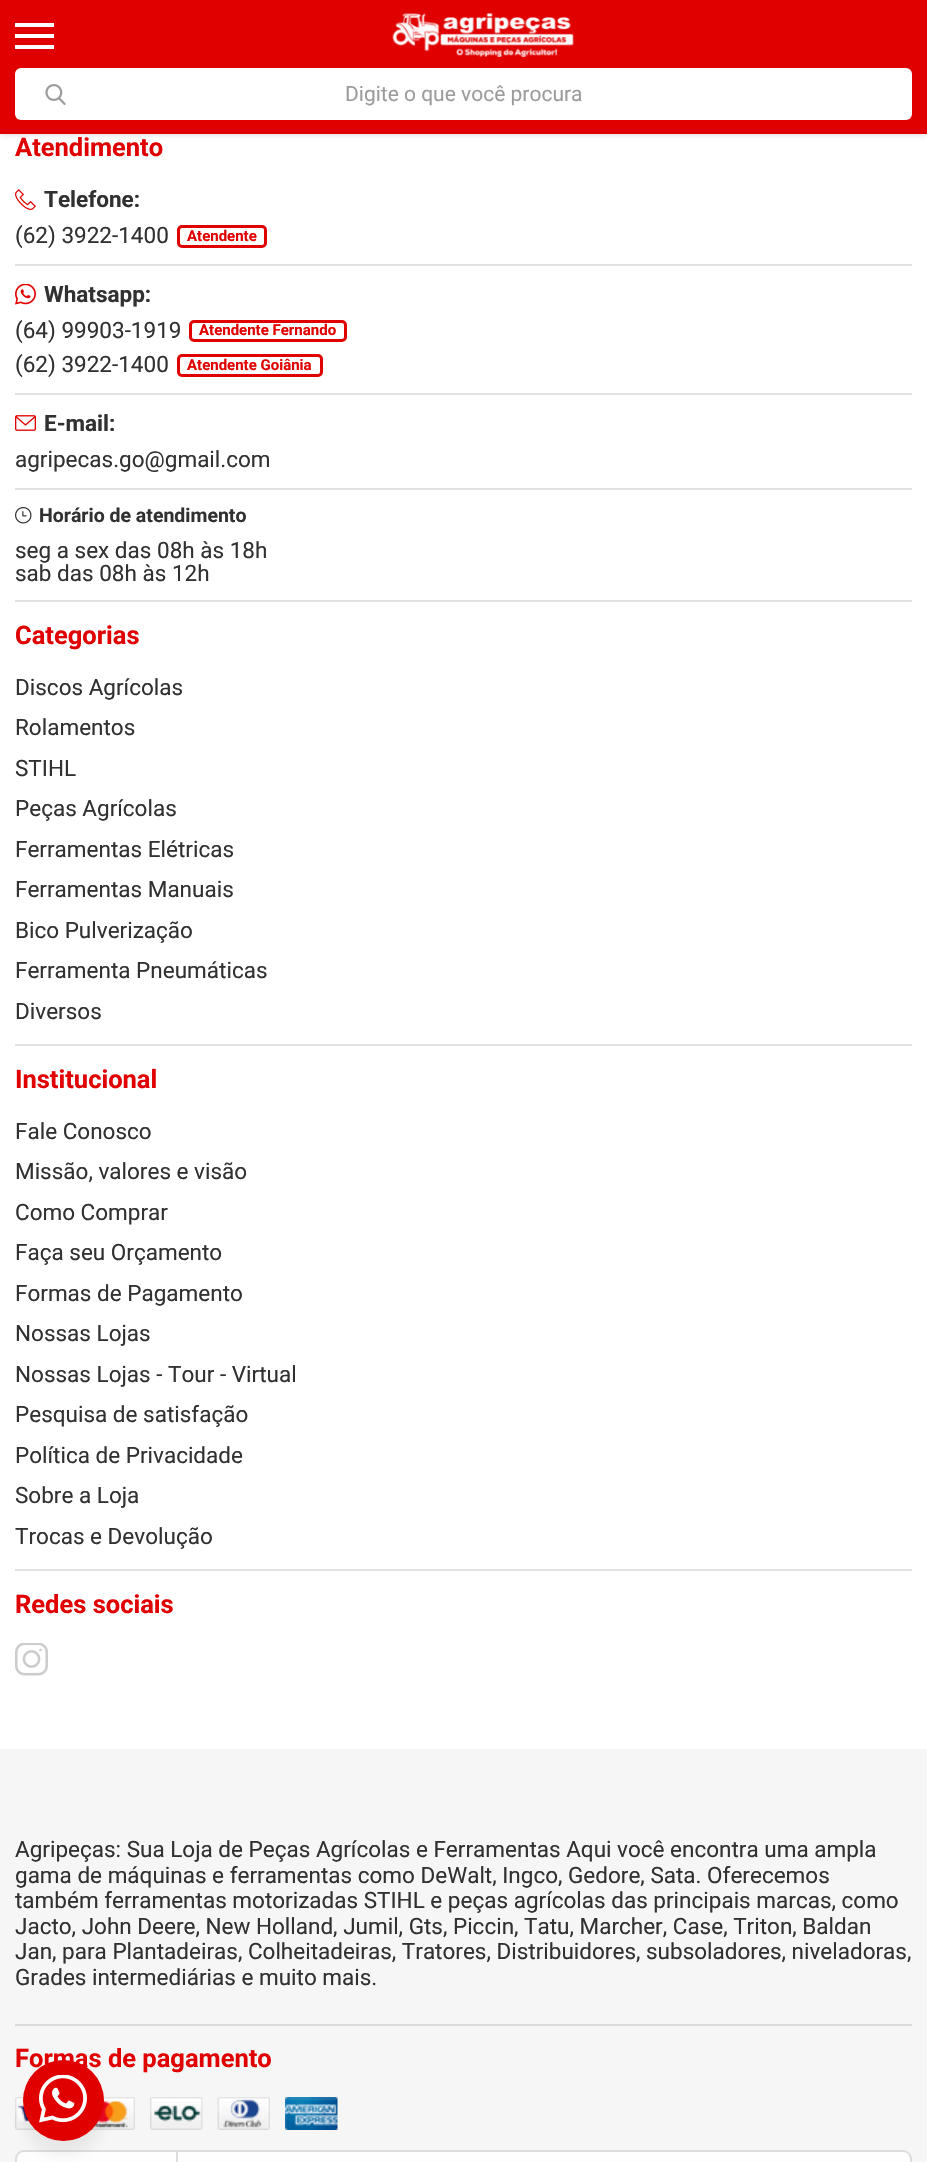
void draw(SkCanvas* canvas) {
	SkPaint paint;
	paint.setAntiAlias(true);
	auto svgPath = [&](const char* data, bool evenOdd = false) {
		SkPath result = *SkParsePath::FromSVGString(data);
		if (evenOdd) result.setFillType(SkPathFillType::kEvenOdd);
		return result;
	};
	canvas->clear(0xffffffff);
	paint.setColor(0x33525252);
	paint.setMaskFilter(SkMaskFilter::MakeBlur(kNormal_SkBlurStyle, 3));
	canvas->drawRect(SkRect::MakeXYWH(0, 2, 927, 133), paint);
	paint.setMaskFilter(nullptr);
	paint.setColor(0xffe00000);
	canvas->drawRect(SkRect::MakeXYWH(0, 0, 927, 134), paint);
	paint.setColor(0xffffffff);
	canvas->drawRect(SkRect::MakeXYWH(15, 45, 39, 4), paint);
	canvas->drawRect(SkRect::MakeXYWH(15, 34, 39, 4), paint);
	canvas->drawRect(SkRect::MakeXYWH(15, 23, 39, 4), paint);
	canvas->drawImageRect(SkImages::DeferredFromEncodedData(SkData::MakeFromFileName("img1.png")), SkRect::MakeXYWH(392, 13, 182, 44), SkSamplingOptions());
	canvas->drawRoundRect(SkRect::MakeXYWH(15, 68, 897, 52), 6, 6, paint);
	canvas->drawImageRect(SkImages::DeferredFromEncodedData(SkData::MakeFromFileName("img2.png")), SkRect::MakeXYWH(45, 84, 21, 21), SkSamplingOptions());
	SkFont f1(fontMgr->matchFamilyStyle("Roboto", SkFontStyle::Normal()), 21);
	f1.setSubpixel(true);
	paint.setColor(0xff9c9c9c);
	canvas->drawString("Digite o que você procura", 345, 101, f1, paint);
	paint.setColor(0xffe2e2e2);
	canvas->drawRect(SkRect::MakeXYWH(15, 600, 897, 2), paint);
	SkFont f2(fontMgr->matchFamilyStyle("Roboto", SkFontStyle::Bold()), 25.5);
	f2.setSubpixel(true);
	paint.setColor(0xffe00000);
	canvas->drawString("Atendimento", 15, 156, f2, paint);
	canvas->drawImageRect(SkImages::DeferredFromEncodedData(SkData::MakeFromFileName("img3.png")), SkRect::MakeXYWH(15, 189, 21, 21), SkSamplingOptions());
	SkFont f3(fontMgr->matchFamilyStyle("Roboto", SkFontStyle::Bold()), 22.5);
	f3.setSubpixel(true);
	paint.setColor(0xff313131);
	canvas->drawString("Telefone:", 44, 207, f3, paint);
	SkFont f4(fontMgr->matchFamilyStyle("Roboto", SkFontStyle::Normal()), 22.5);
	f4.setSubpixel(true);
	canvas->drawString("(62) 3922-1400", 15, 243, f4, paint);
	paint.setStroke(true);
	paint.setStrokeWidth(3);
	paint.setColor(0xffe00000);
	canvas->drawRoundRect(SkRect::MakeXYWH(178.5, 226.5, 87, 20), 3.5, 3.5, paint);
	SkFont f5(fontMgr->matchFamilyStyle("Roboto", SkFontStyle::Bold()), 15);
	f5.setSubpixel(true);
	paint.setStroke(false);
	canvas->drawString("Atendente", 187, 241, f5, paint);
	paint.setColor(0xffe2e2e2);
	canvas->drawRect(SkRect::MakeXYWH(15, 264, 897, 2), paint);
	canvas->drawImageRect(SkImages::DeferredFromEncodedData(SkData::MakeFromFileName("img4.png")), SkRect::MakeXYWH(15, 284, 21, 21), SkSamplingOptions());
	paint.setColor(0xff313131);
	canvas->drawString("Whatsapp:", 44, 302, f3, paint);
	canvas->drawString("(64) 99903-1919", 15, 338, f4, paint);
	paint.setStroke(true);
	paint.setColor(0xffe00000);
	canvas->drawRoundRect(SkRect::MakeXYWH(190.5, 321.5, 155, 19), 3.5, 3.5, paint);
	paint.setStroke(false);
	canvas->drawString("Atendente Fernando", 199, 335, f5, paint);
	paint.setColor(0xff313131);
	canvas->drawString("(62) 3922-1400", 15, 372, f4, paint);
	paint.setStroke(true);
	paint.setColor(0xffe00000);
	canvas->drawRoundRect(SkRect::MakeXYWH(178.5, 355.5, 143, 20), 3.5, 3.5, paint);
	paint.setStroke(false);
	canvas->drawString("Atendente Goiânia", 187, 370, f5, paint);
	paint.setColor(0xffe2e2e2);
	canvas->drawRect(SkRect::MakeXYWH(15, 393, 897, 2), paint);
	canvas->drawImageRect(SkImages::DeferredFromEncodedData(SkData::MakeFromFileName("img5.png")), SkRect::MakeXYWH(15, 415, 21, 16), SkSamplingOptions());
	paint.setColor(0xff313131);
	canvas->drawString("E-mail:", 44, 431, f3, paint);
	canvas->drawString("agripecas.go@gmail.com", 15, 467, f4, paint);
	paint.setColor(0xffe2e2e2);
	canvas->drawRect(SkRect::MakeXYWH(15, 488, 897, 2), paint);
	canvas->drawImageRect(SkImages::DeferredFromEncodedData(SkData::MakeFromFileName("img6.png")), SkRect::MakeXYWH(15, 507, 17, 17), SkSamplingOptions());
	SkFont f6(fontMgr->matchFamilyStyle("Roboto", SkFontStyle::Bold()), 19.5);
	f6.setSubpixel(true);
	paint.setColor(0xff313131);
	canvas->drawString("Horário de atendimento", 39, 522, f6, paint);
	canvas->drawString("seg a sex das 08h às 18h", 15, 558, f4, paint);
	canvas->drawString("sab das 08h às 12h", 15, 581, f4, paint);
	paint.setColor(0xffe2e2e2);
	canvas->drawRect(SkRect::MakeXYWH(15, 1044, 897, 2), paint);
	paint.setColor(0xffe00000);
	canvas->drawString("Categorias", 15, 644, f2, paint);
	paint.setColor(0xff313131);
	canvas->drawString("Discos Agrícolas", 15, 695, f4, paint);
	canvas->drawString("Rolamentos", 15, 735, f4, paint);
	canvas->drawString("STIHL", 15, 776, f4, paint);
	canvas->drawString("Peças Agrícolas", 15, 816, f4, paint);
	canvas->drawString("Ferramentas Elétricas", 15, 857, f4, paint);
	canvas->drawString("Ferramentas Manuais", 15, 897, f4, paint);
	canvas->drawString("Bico Pulverização", 15, 938, f4, paint);
	canvas->drawString("Ferramenta Pneumáticas", 15, 978, f4, paint);
	canvas->drawString("Diversos", 15, 1019, f4, paint);
	paint.setColor(0xffe2e2e2);
	canvas->drawRect(SkRect::MakeXYWH(15, 1569, 897, 2), paint);
	paint.setColor(0xffe00000);
	canvas->drawString("Institucional", 15, 1088, f2, paint);
	paint.setColor(0xff313131);
	canvas->drawString("Fale Conosco", 15, 1139, f4, paint);
	canvas->drawString("Missão, valores e visão", 15, 1179, f4, paint);
	canvas->drawString("Como Comprar", 15, 1220, f4, paint);
	canvas->drawString("Faça seu Orçamento", 15, 1260, f4, paint);
	canvas->drawString("Formas de Pagamento", 15, 1301, f4, paint);
	canvas->drawString("Nossas Lojas", 15, 1341, f4, paint);
	canvas->drawString("Nossas Lojas - Tour - Virtual", 15, 1382, f4, paint);
	canvas->drawString("Pesquisa de satisfação", 15, 1422, f4, paint);
	canvas->drawString("Política de Privacidade", 15, 1463, f4, paint);
	canvas->drawString("Sobre a Loja", 15, 1503, f4, paint);
	canvas->drawString("Trocas e Devolução", 15, 1544, f4, paint);
	paint.setColor(0xffe00000);
	canvas->drawString("Redes sociais", 15, 1613, f2, paint);
	canvas->drawImageRect(SkImages::DeferredFromEncodedData(SkData::MakeFromFileName("img7.png")), SkRect::MakeXYWH(15, 1643, 33, 33), SkSamplingOptions());
	paint.setColor(0xfff6f6f6);
	canvas->drawRect(SkRect::MakeXYWH(0, 1749, 927, 413), paint);
	paint.setColor(0xffdbdbdb);
	canvas->drawRect(SkRect::MakeXYWH(15, 2024, 897, 2), paint);
	paint.setColor(0xff313131);
	canvas->drawString("Agripeças: Sua Loja de Peças Agrícolas e Ferramentas Aqui você encontra uma ampla", 15, 1857, f4, paint);
	canvas->drawString("gama de máquinas e ferramentas como DeWalt, Ingco, Gedore, Sata. Oferecemos", 15, 1883, f4, paint);
	canvas->drawString("também ferramentas motorizadas STIHL e peças agrícolas das principais marcas, como", 15, 1908, f4, paint);
	canvas->drawString("Jacto, John Deere, New Holland, Jumil, Gts, Piccin, Tatu, Marcher, Case, Triton, Baldan", 15, 1934, f4, paint);
	canvas->drawString("Jan, para Plantadeiras, Colheitadeiras, Tratores, Distribuidores, subsoladores, niveladoras,", 15, 1959, f4, paint);
	canvas->drawString("Grades intermediárias e muito mais.", 15, 1985, f4, paint);
	paint.setColor(0xffe00000);
	canvas->drawString("Formas de pagamento", 15, 2067, f2, paint);
	canvas->drawImageRect(SkImages::DeferredFromEncodedData(SkData::MakeFromFileName("img8.png")), SkRect::MakeXYWH(15, 2097, 21, 33), SkSamplingOptions());
	canvas->drawImageRect(SkImages::DeferredFromEncodedData(SkData::MakeFromFileName("img9.png")), SkRect::MakeXYWH(91, 2097, 44, 33), SkSamplingOptions());
	canvas->drawImageRect(SkImages::DeferredFromEncodedData(SkData::MakeFromFileName("img10.png")), SkRect::MakeXYWH(150, 2097, 53, 33), SkSamplingOptions());
	canvas->drawImageRect(SkImages::DeferredFromEncodedData(SkData::MakeFromFileName("img11.png")), SkRect::MakeXYWH(217, 2097, 53, 33), SkSamplingOptions());
	canvas->drawImageRect(SkImages::DeferredFromEncodedData(SkData::MakeFromFileName("img12.png")), SkRect::MakeXYWH(285, 2097, 53, 33), SkSamplingOptions());
	canvas->save();
	canvas->clipPath(svgPath("M24 2150H903C908 2150 912 2154 912 2159V2205C912 2210 908 2214 903 2214H24C19 2214 15 2210 15 2205V2159C15 2154 19 2150 24 2150Z"), true);
	{
		const SkColor colors[] = {0xffffffff, 0xfff5f5f5};
		const float stops[] = {0, 1};
		const SkPoint ends[] = {{464, 2151}, {464, 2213}};
		paint.setShader(SkGradientShader::MakeLinear(ends, colors, stops, 2, SkTileMode::kClamp));
		paint.setAlpha(255);
	}
	canvas->drawRect(SkRect::MakeXYWH(15, 2151, 897, 11), paint);
	canvas->restore();
	paint.setStroke(true);
	paint.setStrokeWidth(2);
	paint.setShader(nullptr);
	paint.setColor(0xffdddddd);
	canvas->drawRoundRect(SkRect::MakeXYWH(16, 2151, 895, 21), 8, 8, paint);
	paint.setStroke(false);
	canvas->drawRect(SkRect::MakeXYWH(176, 2151, 2, 11), paint);
	paint.setColor(0x1a676767);
	paint.setMaskFilter(SkMaskFilter::MakeBlur(kNormal_SkBlurStyle, 6));
	canvas->drawRoundRect(SkRect::MakeXYWH(23, 2075, 81, 81), 40.5, 40.5, paint);
	paint.setMaskFilter(nullptr);
	paint.setColor(0xffe00000);
	canvas->drawCircle(63.5, 2100.5, 40.5, paint);
	canvas->drawImageRect(SkImages::DeferredFromEncodedData(SkData::MakeFromFileName("img13.png")), SkRect::MakeXYWH(39, 2075, 48, 48), SkSamplingOptions());
}
